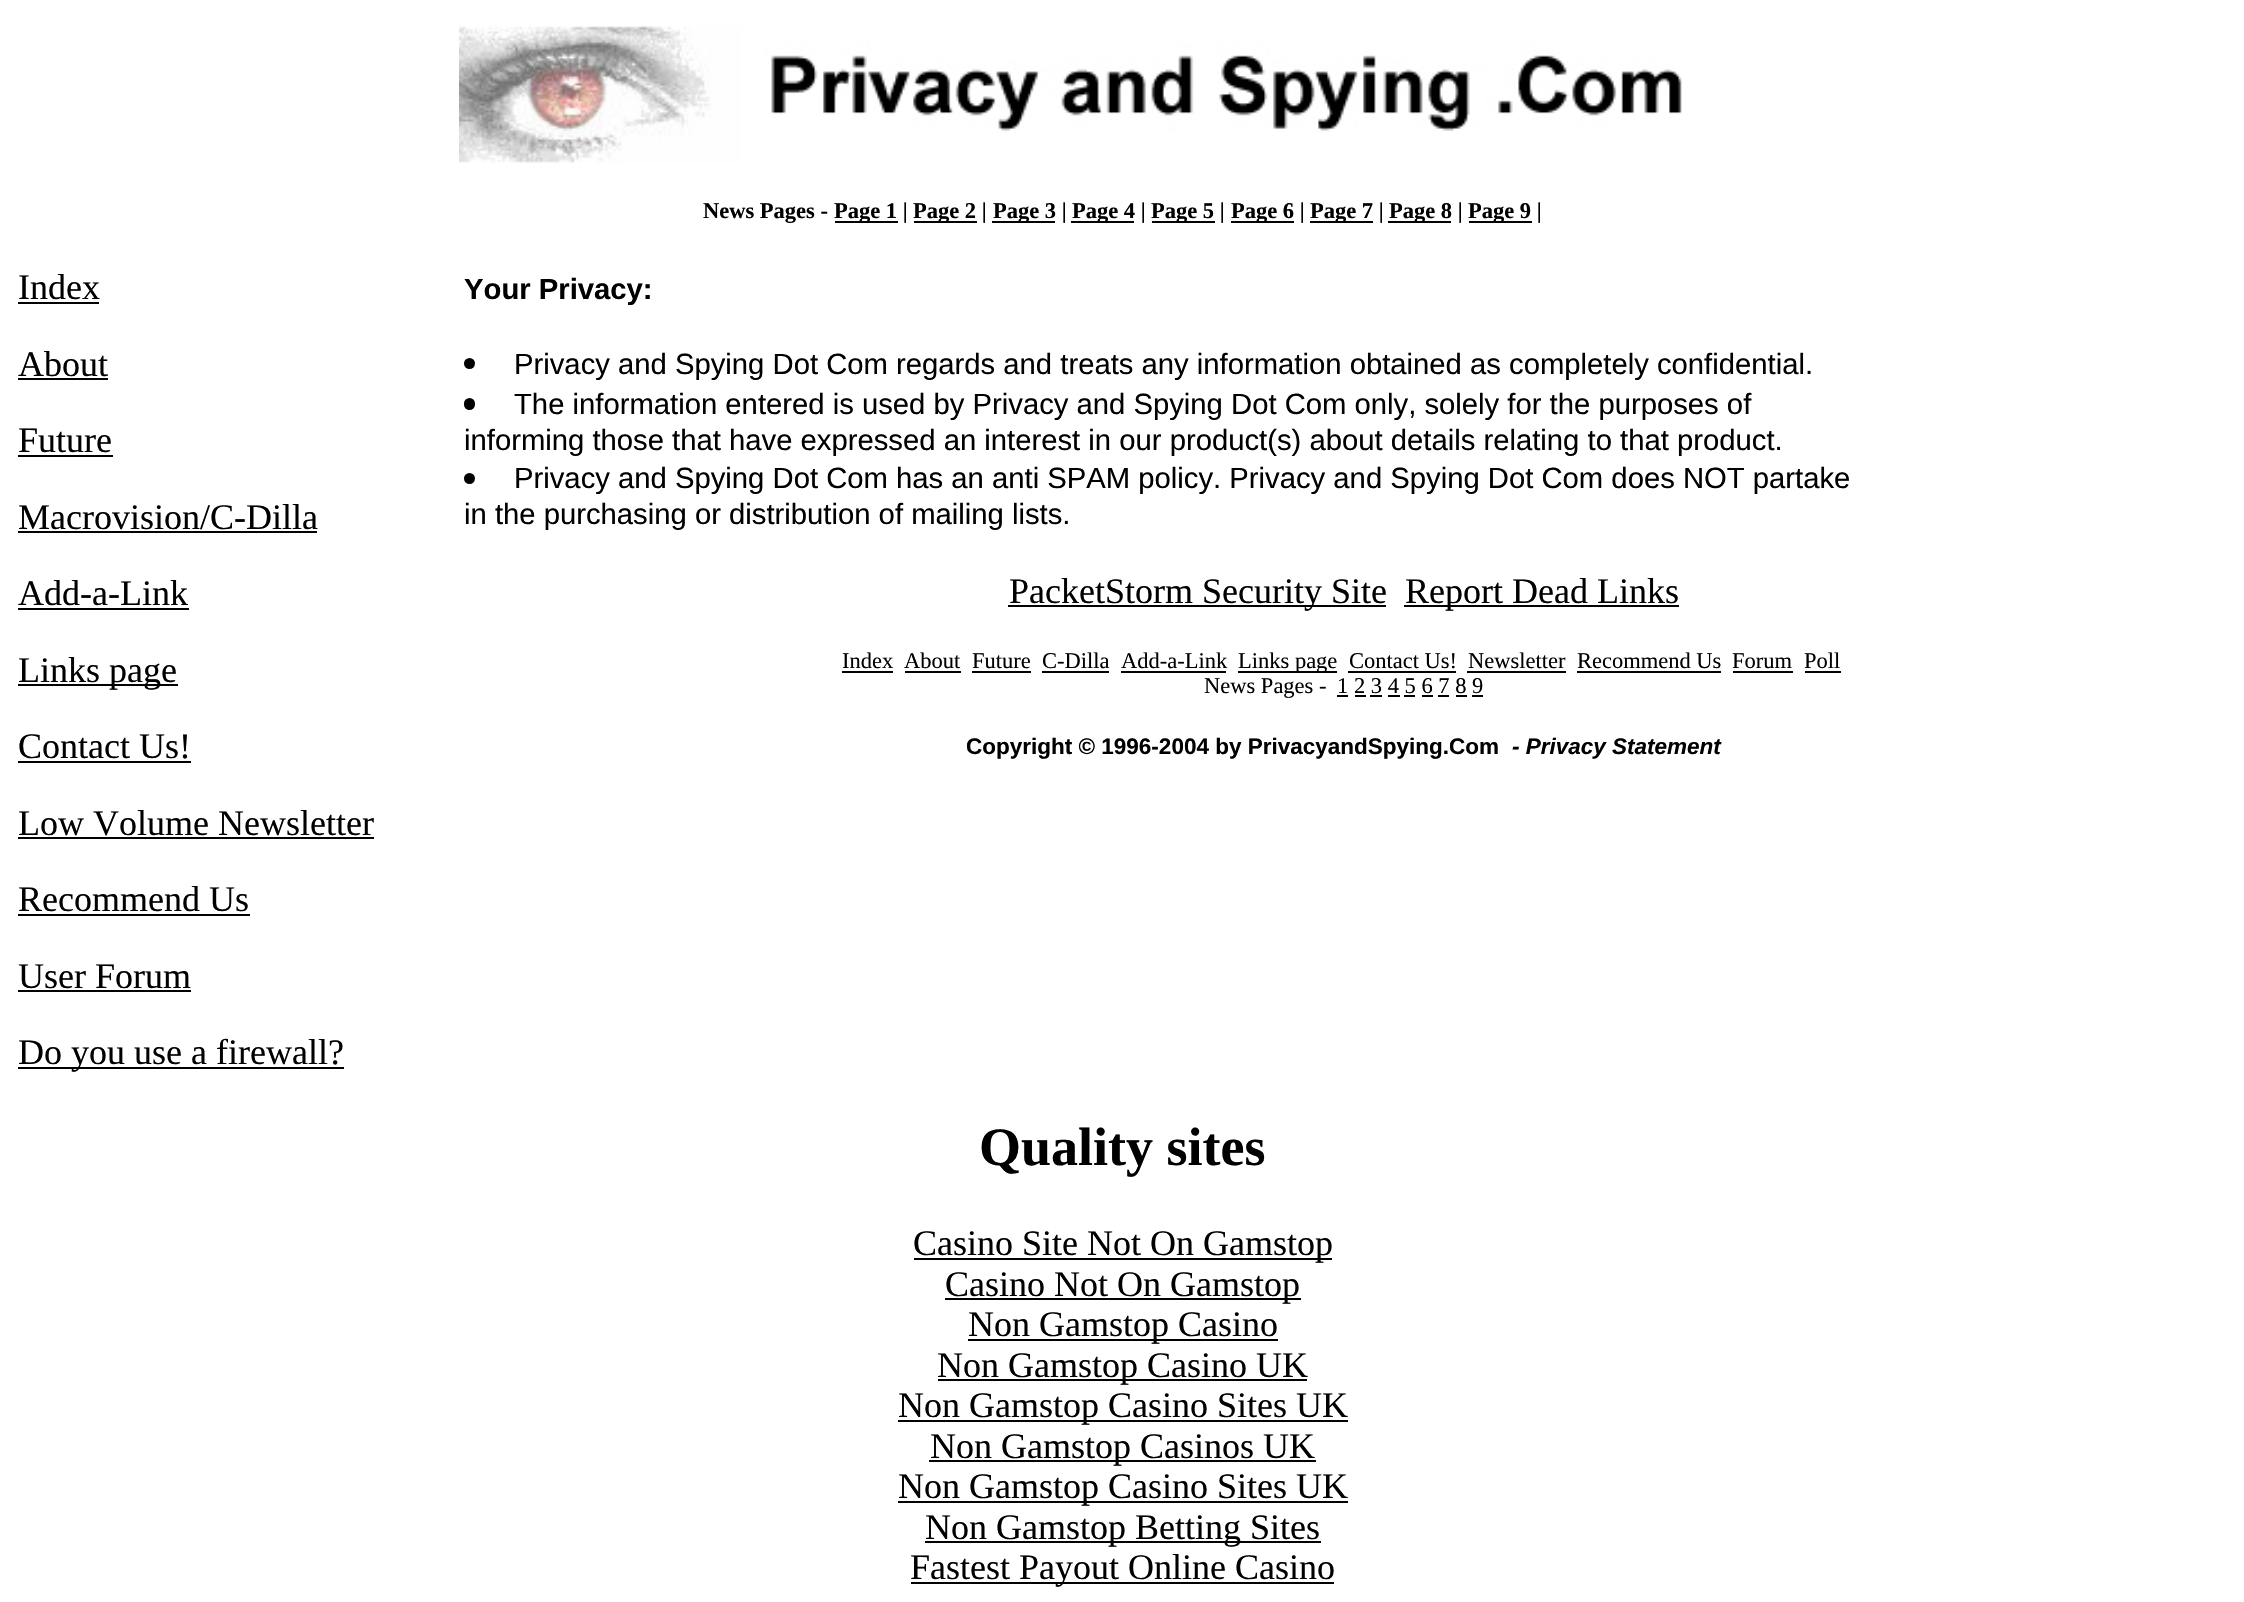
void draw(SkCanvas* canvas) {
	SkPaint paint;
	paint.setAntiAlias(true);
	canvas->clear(0xffffffff);
	canvas->drawImageRect(SkImages::DeferredFromEncodedData(SkData::MakeFromFileName("img1.png")), SkRect::MakeXYWH(459, 26, 1223, 137), SkSamplingOptions());
	SkFont f1(fontMgr->matchFamilyStyle("Liberation Serif", SkFontStyle::Bold()), 22.5);
	f1.setSubpixel(true);
	paint.setColor(0xff000000);
	canvas->drawString("News Pages -", 703, 218, f1, paint);
	canvas->drawRect(SkRect::MakeXYWH(835, 221, 63, 2), paint);
	canvas->drawString("Page 1 |", 834, 218, f1, paint);
	canvas->drawRect(SkRect::MakeXYWH(914, 221, 63, 2), paint);
	canvas->drawString("Page 2 |", 913, 218, f1, paint);
	canvas->drawRect(SkRect::MakeXYWH(992, 221, 63, 2), paint);
	canvas->drawString("Page 3 |", 993, 218, f1, paint);
	canvas->drawRect(SkRect::MakeXYWH(1071, 221, 63, 2), paint);
	canvas->drawString("Page 4 |", 1072, 218, f1, paint);
	canvas->drawRect(SkRect::MakeXYWH(1152, 221, 63, 2), paint);
	canvas->drawString("Page 5 |", 1151, 218, f1, paint);
	canvas->drawRect(SkRect::MakeXYWH(1231, 221, 63, 2), paint);
	canvas->drawString("Page 6 |", 1231, 218, f1, paint);
	canvas->drawRect(SkRect::MakeXYWH(1310, 221, 63, 2), paint);
	canvas->drawString("Page 7 |", 1310, 218, f1, paint);
	canvas->drawRect(SkRect::MakeXYWH(1388, 221, 63, 2), paint);
	canvas->drawString("Page 8 |", 1389, 218, f1, paint);
	canvas->drawRect(SkRect::MakeXYWH(1469, 221, 63, 2), paint);
	canvas->drawString("Page 9 |", 1468, 218, f1, paint);
	SkFont f2(fontMgr->matchFamilyStyle("Liberation Serif", SkFontStyle::Normal()), 36);
	f2.setSubpixel(true);
	canvas->drawString("Index", 18, 299, f2, paint);
	canvas->drawRect(SkRect::MakeXYWH(18, 302, 81, 2), paint);
	canvas->drawString("About", 18, 376, f2, paint);
	canvas->drawRect(SkRect::MakeXYWH(18, 378, 90, 2), paint);
	canvas->drawString("Future", 18, 452, f2, paint);
	canvas->drawRect(SkRect::MakeXYWH(18, 455, 95, 2), paint);
	canvas->drawString("Macrovision/C-Dilla", 18, 529, f2, paint);
	canvas->drawRect(SkRect::MakeXYWH(18, 531, 299, 2), paint);
	canvas->drawString("Add-a-Link", 18, 605, f2, paint);
	canvas->drawRect(SkRect::MakeXYWH(18, 608, 171, 2), paint);
	canvas->drawRect(SkRect::MakeXYWH(18, 684, 160, 2), paint);
	canvas->drawString("Links page", 18, 682, f2, paint);
	canvas->drawString("Contact Us!", 18, 758, f2, paint);
	canvas->drawRect(SkRect::MakeXYWH(18, 761, 173, 2), paint);
	canvas->drawString("Low Volume Newsletter", 18, 835, f2, paint);
	canvas->drawRect(SkRect::MakeXYWH(18, 837, 356, 2), paint);
	canvas->drawString("Recommend Us", 18, 911, f2, paint);
	canvas->drawRect(SkRect::MakeXYWH(18, 914, 232, 2), paint);
	canvas->drawString("User Forum", 18, 988, f2, paint);
	canvas->drawRect(SkRect::MakeXYWH(18, 990, 173, 2), paint);
	canvas->drawRect(SkRect::MakeXYWH(18, 1067, 326, 2), paint);
	canvas->drawString("Do you use a firewall?", 18, 1064, f2, paint);
	SkFont f3(fontMgr->matchFamilyStyle("Liberation Sans", SkFontStyle::Bold()), 29.25);
	f3.setSubpixel(true);
	canvas->drawString("Your Privacy:", 464, 299, f3, paint);
	canvas->drawCircle(469.5, 363.5, 5.5, paint);
	SkFont f4(fontMgr->matchFamilyStyle("Liberation Sans", SkFontStyle::Normal()), 29.25);
	f4.setSubpixel(true);
	canvas->drawString("Privacy and Spying Dot Com regards and treats any information obtained as completely confidential.", 514, 374, f4, paint);
	canvas->drawRoundRect(SkRect::MakeXYWH(464, 398, 11, 12), 5.5, 5.5, paint);
	canvas->drawString("The information entered is used by Privacy and Spying Dot Com only, solely for the purposes of", 514, 414, f4, paint);
	canvas->drawString("informing those that have expressed an interest in our product(s) about details relating to that product.", 464, 450, f4, paint);
	canvas->drawCircle(469.5, 478.5, 5.5, paint);
	canvas->drawString("Privacy and Spying Dot Com has an anti SPAM policy. Privacy and Spying Dot Com does NOT partake", 514, 488, f4, paint);
	canvas->drawString("in the purchasing or distribution of mailing lists.", 464, 524, f4, paint);
	canvas->drawRect(SkRect::MakeXYWH(1008, 605, 378, 2), paint);
	canvas->drawString("PacketStorm Security Site", 1009, 603, f2, paint);
	canvas->drawRect(SkRect::MakeXYWH(1404, 605, 275, 2), paint);
	canvas->drawString("Report Dead Links", 1405, 603, f2, paint);
	SkFont f5(fontMgr->matchFamilyStyle("Liberation Serif", SkFontStyle::Normal()), 22.5);
	f5.setSubpixel(true);
	canvas->drawString("Index", 842, 668, f5, paint);
	canvas->drawRect(SkRect::MakeXYWH(842, 671, 51, 2), paint);
	canvas->drawString("About", 904, 668, f5, paint);
	canvas->drawRect(SkRect::MakeXYWH(905, 671, 56, 2), paint);
	canvas->drawString("Future", 972, 668, f5, paint);
	canvas->drawRect(SkRect::MakeXYWH(972, 671, 59, 2), paint);
	canvas->drawString("C-Dilla", 1042, 668, f5, paint);
	canvas->drawRect(SkRect::MakeXYWH(1042, 671, 67, 2), paint);
	canvas->drawString("Add-a-Link", 1121, 668, f5, paint);
	canvas->drawRect(SkRect::MakeXYWH(1121, 671, 105, 2), paint);
	canvas->drawRect(SkRect::MakeXYWH(1238, 671, 99, 2), paint);
	canvas->drawString("Links page", 1238, 668, f5, paint);
	canvas->drawString("Contact Us!", 1349, 668, f5, paint);
	canvas->drawRect(SkRect::MakeXYWH(1348, 671, 108, 2), paint);
	canvas->drawString("Newsletter", 1468, 668, f5, paint);
	canvas->drawRect(SkRect::MakeXYWH(1467, 671, 99, 2), paint);
	canvas->drawString("Recommend Us", 1577, 668, f5, paint);
	canvas->drawRect(SkRect::MakeXYWH(1577, 671, 144, 2), paint);
	canvas->drawString("Forum", 1732, 668, f5, paint);
	canvas->drawRect(SkRect::MakeXYWH(1733, 671, 60, 2), paint);
	canvas->drawString("Poll", 1804, 668, f5, paint);
	canvas->drawRect(SkRect::MakeXYWH(1805, 671, 36, 2), paint);
	canvas->drawString("News Pages -", 1204, 693, f5, paint);
	canvas->drawString("1 2 3 4 5 6 7 8 9", 1337, 693, f5, paint);
	canvas->drawRect(SkRect::MakeXYWH(1337, 695, 11, 2), paint);
	canvas->drawRect(SkRect::MakeXYWH(1355, 695, 11, 2), paint);
	canvas->drawRect(SkRect::MakeXYWH(1370, 695, 12, 2), paint);
	canvas->drawRect(SkRect::MakeXYWH(1388, 695, 12, 2), paint);
	canvas->drawRect(SkRect::MakeXYWH(1404, 695, 11, 2), paint);
	canvas->drawRect(SkRect::MakeXYWH(1422, 695, 11, 2), paint);
	canvas->drawRect(SkRect::MakeXYWH(1438, 695, 11, 2), paint);
	canvas->drawRect(SkRect::MakeXYWH(1456, 695, 11, 2), paint);
	canvas->drawRect(SkRect::MakeXYWH(1472, 695, 11, 2), paint);
	SkFont f6(fontMgr->matchFamilyStyle("Liberation Sans", SkFontStyle::Bold()), 22.5);
	f6.setSubpixel(true);
	canvas->drawString("Copyright © 1996-2004 by PrivacyandSpying.Com", 966, 754, f6, paint);
	SkFont f7(fontMgr->matchFamilyStyle("Liberation Sans", SkFontStyle::BoldItalic()), 22.5);
	f7.setSubpixel(true);
	canvas->drawString("- Privacy Statement", 1512, 754, f7, paint);
	SkFont f8(fontMgr->matchFamilyStyle("Liberation Serif", SkFontStyle::Bold()), 54);
	f8.setSubpixel(true);
	canvas->drawString("Quality sites", 979, 1165, f8, paint);
	canvas->drawRect(SkRect::MakeXYWH(914, 1258, 418, 2), paint);
	canvas->drawString("Casino Site Not On Gamstop", 913, 1255, f2, paint);
	canvas->drawRect(SkRect::MakeXYWH(945, 1298, 356, 2), paint);
	canvas->drawString("Casino Not On Gamstop", 945, 1296, f2, paint);
	canvas->drawRect(SkRect::MakeXYWH(968, 1339, 310, 2), paint);
	canvas->drawString("Non Gamstop Casino", 968, 1336, f2, paint);
	canvas->drawRect(SkRect::MakeXYWH(938, 1379, 369, 2), paint);
	canvas->drawString("Non Gamstop Casino UK", 937, 1377, f2, paint);
	canvas->drawRect(SkRect::MakeXYWH(898, 1420, 450, 2), paint);
	canvas->drawString("Non Gamstop Casino Sites UK", 898, 1417, f2, paint);
	canvas->drawRect(SkRect::MakeXYWH(929, 1460, 387, 2), paint);
	canvas->drawString("Non Gamstop Casinos UK", 930, 1458, f2, paint);
	canvas->drawRect(SkRect::MakeXYWH(898, 1501, 450, 2), paint);
	canvas->drawString("Non Gamstop Casino Sites UK", 898, 1498, f2, paint);
	canvas->drawRect(SkRect::MakeXYWH(925, 1541, 396, 2), paint);
	canvas->drawString("Non Gamstop Betting Sites", 925, 1539, f2, paint);
	canvas->drawRect(SkRect::MakeXYWH(911, 1582, 423, 2), paint);
	canvas->drawString("Fastest Payout Online Casino", 910, 1579, f2, paint);
}
